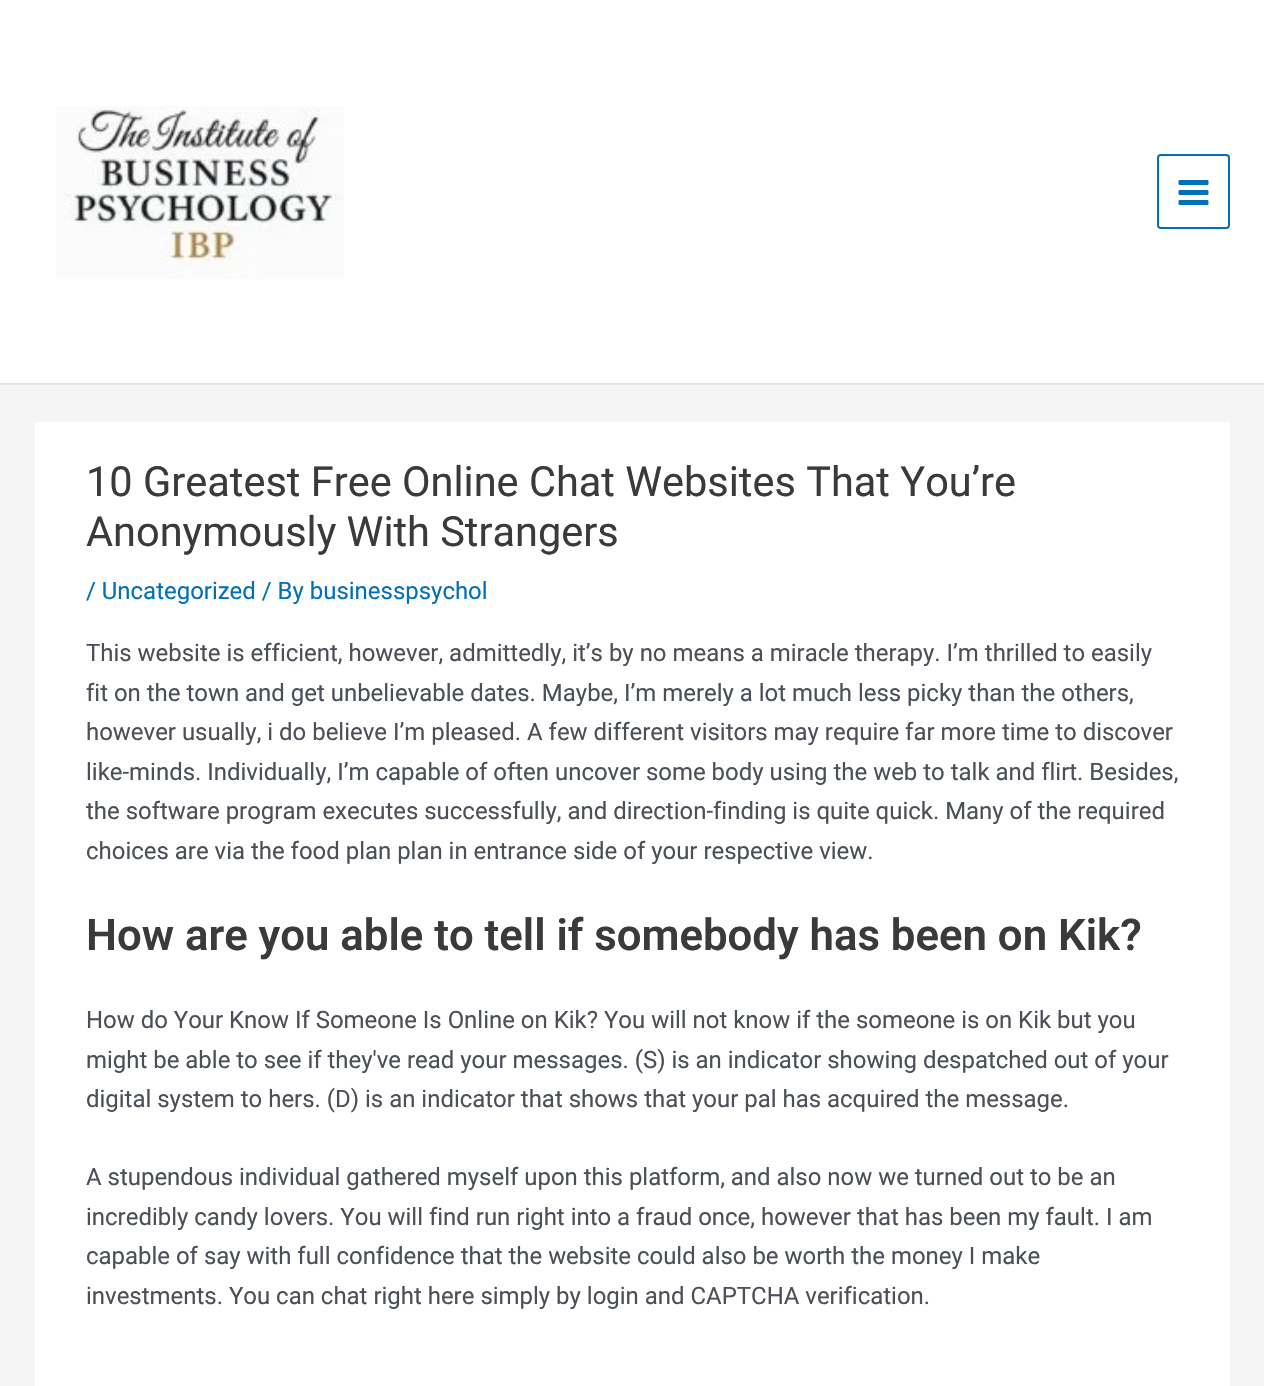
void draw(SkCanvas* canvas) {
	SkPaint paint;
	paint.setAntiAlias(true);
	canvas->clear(0xfff5f5f5);
	paint.setColor(0xffffffff);
	canvas->drawRect(SkRect::MakeXYWH(0, 0, 1264, 383), paint);
	paint.setColor(0xffe5e5e5);
	canvas->drawRect(SkRect::MakeXYWH(0, 383, 1264, 2), paint);
	canvas->drawImageRect(SkImages::DeferredFromEncodedData(SkData::MakeFromFileName("img1.png")), SkRect::MakeXYWH(56, 106, 288, 173), SkSamplingOptions());
	paint.setStroke(true);
	paint.setStrokeWidth(2);
	paint.setColor(0xff0170b9);
	canvas->drawRoundRect(SkRect::MakeXYWH(1158, 155, 71, 73), 3, 3, paint);
	canvas->drawImageRect(SkImages::DeferredFromEncodedData(SkData::MakeFromFileName("img2.png")), SkRect::MakeXYWH(1178, 180, 31, 25), SkSamplingOptions());
	paint.setStroke(false);
	paint.setColor(0xffffffff);
	canvas->drawRect(SkRect::MakeXYWH(35, 422, 1195, 964), paint);
	SkFont f1(fontMgr->matchFamilyStyle("Roboto", SkFontStyle::Normal()), 41.5);
	f1.setSubpixel(true);
	paint.setColor(0xff3a3a3a);
	canvas->drawString("10 Greatest Free Online Chat Websites That You’re", 86, 496, f1, paint);
	canvas->drawString("Anonymously With Strangers", 86, 546, f1, paint);
	SkFont f2(fontMgr->matchFamilyStyle("Roboto", SkFontStyle::Normal()), 23.95);
	f2.setSubpixel(true);
	paint.setColor(0xff0170b9);
	canvas->drawString("/ Uncategorized / By businesspsychol", 86, 599, f2, paint);
	paint.setColor(0xff4b4f58);
	canvas->drawString("This website is efficient, however, admittedly, it’s by no means a miracle therapy. I’m thrilled to easily", 86, 661, f2, paint);
	canvas->drawString("fit on the town and get unbelievable dates. Maybe, I’m merely a lot much less picky than the others,", 86, 701, f2, paint);
	canvas->drawString("however usually, i do believe I’m pleased. A few different visitors may require far more time to discover", 86, 740, f2, paint);
	canvas->drawString("like-minds. Individually, I’m capable of often uncover some body using the web to talk and flirt. Besides,", 86, 780, f2, paint);
	canvas->drawString("the software program executes successfully, and direction-finding is quite quick. Many of the required", 86, 819, f2, paint);
	canvas->drawString("choices are via the food plan plan in entrance side of your respective view.", 86, 859, f2, paint);
	SkFont f3(fontMgr->matchFamilyStyle("Roboto", SkFontStyle(600, SkFontStyle::kNormal_Width, SkFontStyle::kUpright_Slant)), 43.75);
	f3.setSubpixel(true);
	paint.setColor(0xff3a3a3a);
	canvas->drawString("How are you able to tell if somebody has been on Kik?", 86, 950, f3, paint);
	paint.setColor(0xff4b4f58);
	canvas->drawString("How do Your Know If Someone Is Online on Kik? You will not know if the someone is on Kik but you", 86, 1028, f2, paint);
	canvas->drawString("might be able to see if they've read your messages. (S) is an indicator showing despatched out of your", 86, 1068, f2, paint);
	canvas->drawString("digital system to hers. (D) is an indicator that shows that your pal has acquired the message.", 86, 1107, f2, paint);
	canvas->drawString("A stupendous individual gathered myself upon this platform, and also now we turned out to be an", 86, 1185, f2, paint);
	canvas->drawString("incredibly candy lovers. You will find run right into a fraud once, however that has been my fault. I am", 86, 1225, f2, paint);
	canvas->drawString("capable of say with full confidence that the website could also be worth the money I make", 86, 1264, f2, paint);
	canvas->drawString("investments. You can chat right here simply by login and CAPTCHA verification.", 86, 1304, f2, paint);
}
